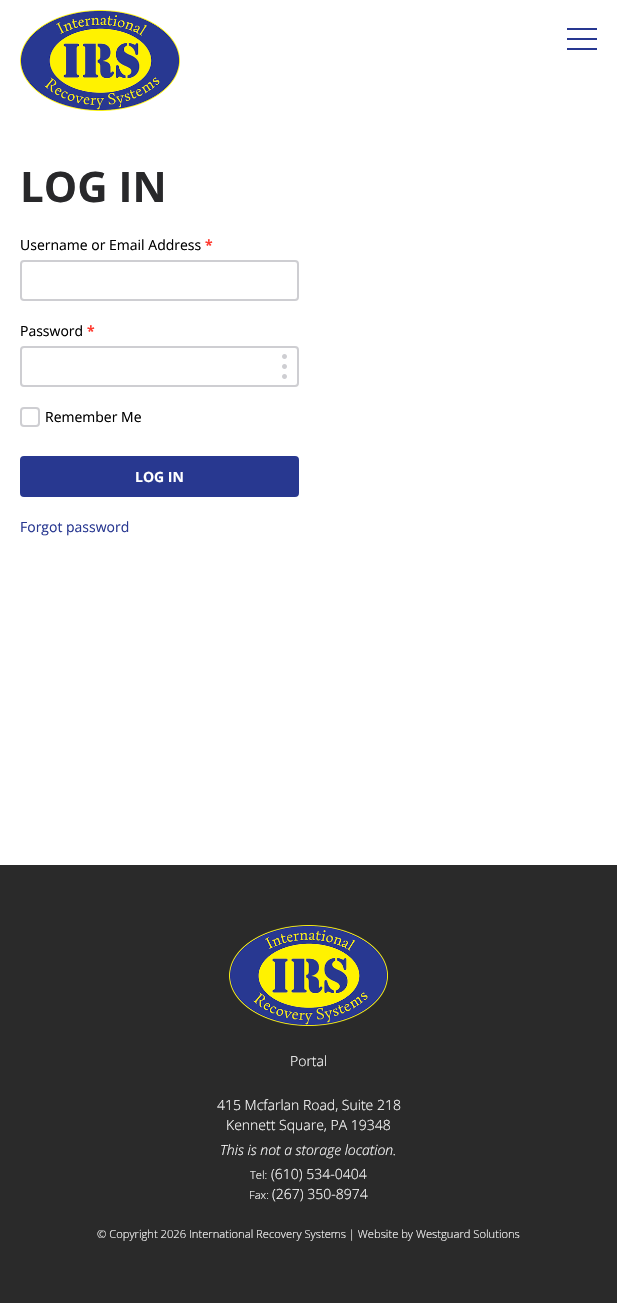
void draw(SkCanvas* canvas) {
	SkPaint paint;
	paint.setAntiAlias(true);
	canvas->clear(0xffffffff);
	canvas->drawImageRect(SkImages::DeferredFromEncodedData(SkData::MakeFromFileName("img1.png")), SkRect::MakeXYWH(20, 10, 160, 101), SkSamplingOptions());
	paint.setColor(0xff283891);
	canvas->drawRect(SkRect::MakeXYWH(567, 38, 30, 2), paint);
	canvas->drawRect(SkRect::MakeXYWH(567, 28, 30, 2), paint);
	canvas->drawRect(SkRect::MakeXYWH(567, 48, 30, 2), paint);
	SkFont f1(fontMgr->matchFamilyStyle("Open Sans", SkFontStyle::Bold()), 42);
	f1.setSubpixel(true);
	paint.setColor(0xff28282a);
	canvas->drawString("LOG IN", 20, 202, f1, paint);
	SkFont f2(fontMgr->matchFamilyStyle("Open Sans", SkFontStyle::Normal()), 14);
	f2.setSubpixel(true);
	paint.setColor(0xff000000);
	canvas->drawString("Username or Email Address", 20, 250, f2, paint);
	SkFont f3(fontMgr->matchFamilyStyle("Open Sans", SkFontStyle::Bold()), 14);
	f3.setSubpixel(true);
	paint.setColor(0xffff3b30);
	canvas->drawString("*", 205, 250, f3, paint);
	paint.setStroke(true);
	paint.setStrokeWidth(2);
	paint.setColor(0xffceced2);
	canvas->drawRoundRect(SkRect::MakeXYWH(21, 261, 277, 39), 3, 3, paint);
	paint.setStroke(false);
	paint.setColor(0xff000000);
	canvas->drawString("Password", 20, 336, f2, paint);
	paint.setColor(0xffff3b30);
	canvas->drawString("*", 87, 336, f3, paint);
	canvas->drawImageRect(SkImages::DeferredFromEncodedData(SkData::MakeFromFileName("img2.png")), SkRect::MakeXYWH(282, 354, 5, 25), SkSamplingOptions());
	paint.setStroke(true);
	paint.setColor(0xffceced2);
	canvas->drawRoundRect(SkRect::MakeXYWH(21, 347, 277, 39), 3, 3, paint);
	canvas->drawRoundRect(SkRect::MakeXYWH(21, 408, 18, 18), 3, 3, paint);
	paint.setStroke(false);
	paint.setColor(0xff000000);
	canvas->drawString("Remember Me", 45, 422, f2, paint);
	paint.setColor(0xff283890);
	canvas->drawRoundRect(SkRect::MakeXYWH(21, 457, 277, 39), 3, 3, paint);
	paint.setStroke(true);
	canvas->drawRoundRect(SkRect::MakeXYWH(21, 457, 277, 39), 3, 3, paint);
	paint.setStroke(false);
	paint.setColor(0xffffffff);
	canvas->drawString("LOG IN", 135, 482, f3, paint);
	paint.setColor(0xff283891);
	canvas->drawString("Forgot password", 20, 532, f2, paint);
	paint.setColor(0xff2a2a2a);
	canvas->drawRect(SkRect::MakeXYWH(0, 865, 617, 438), paint);
	canvas->drawImageRect(SkImages::DeferredFromEncodedData(SkData::MakeFromFileName("img3.png")), SkRect::MakeXYWH(229, 925, 159, 101), SkSamplingOptions());
	SkFont f4(fontMgr->matchFamilyStyle("Open Sans", SkFontStyle(300, SkFontStyle::kNormal_Width, SkFontStyle::kUpright_Slant)), 14);
	f4.setSubpixel(true);
	paint.setColor(0xffffffff);
	canvas->drawString("Portal", 290, 1066, f4, paint);
	canvas->drawString("415 Mcfarlan Road, Suite 218", 217, 1110, f4, paint);
	canvas->drawString("Kennett Square, PA 19348", 226, 1130, f4, paint);
	SkFont f5(fontMgr->matchFamilyStyle("Open Sans", SkFontStyle(300, SkFontStyle::kNormal_Width, SkFontStyle::kItalic_Slant)), 14);
	f5.setSubpixel(true);
	canvas->drawString("This is not a storage location.", 220, 1155, f5, paint);
	SkFont f6(fontMgr->matchFamilyStyle("Open Sans", SkFontStyle(300, SkFontStyle::kNormal_Width, SkFontStyle::kUpright_Slant)), 11.2);
	f6.setSubpixel(true);
	canvas->drawString("Tel:", 250, 1179, f6, paint);
	canvas->drawString("(610) 534-0404", 271, 1179, f4, paint);
	canvas->drawString("Fax:", 249, 1199, f6, paint);
	canvas->drawString("(267) 350-8974", 272, 1199, f4, paint);
	canvas->drawString("© Copyright 2026 International Recovery Systems | Website by Westguard Solutions", 97, 1238, f6, paint);
}
